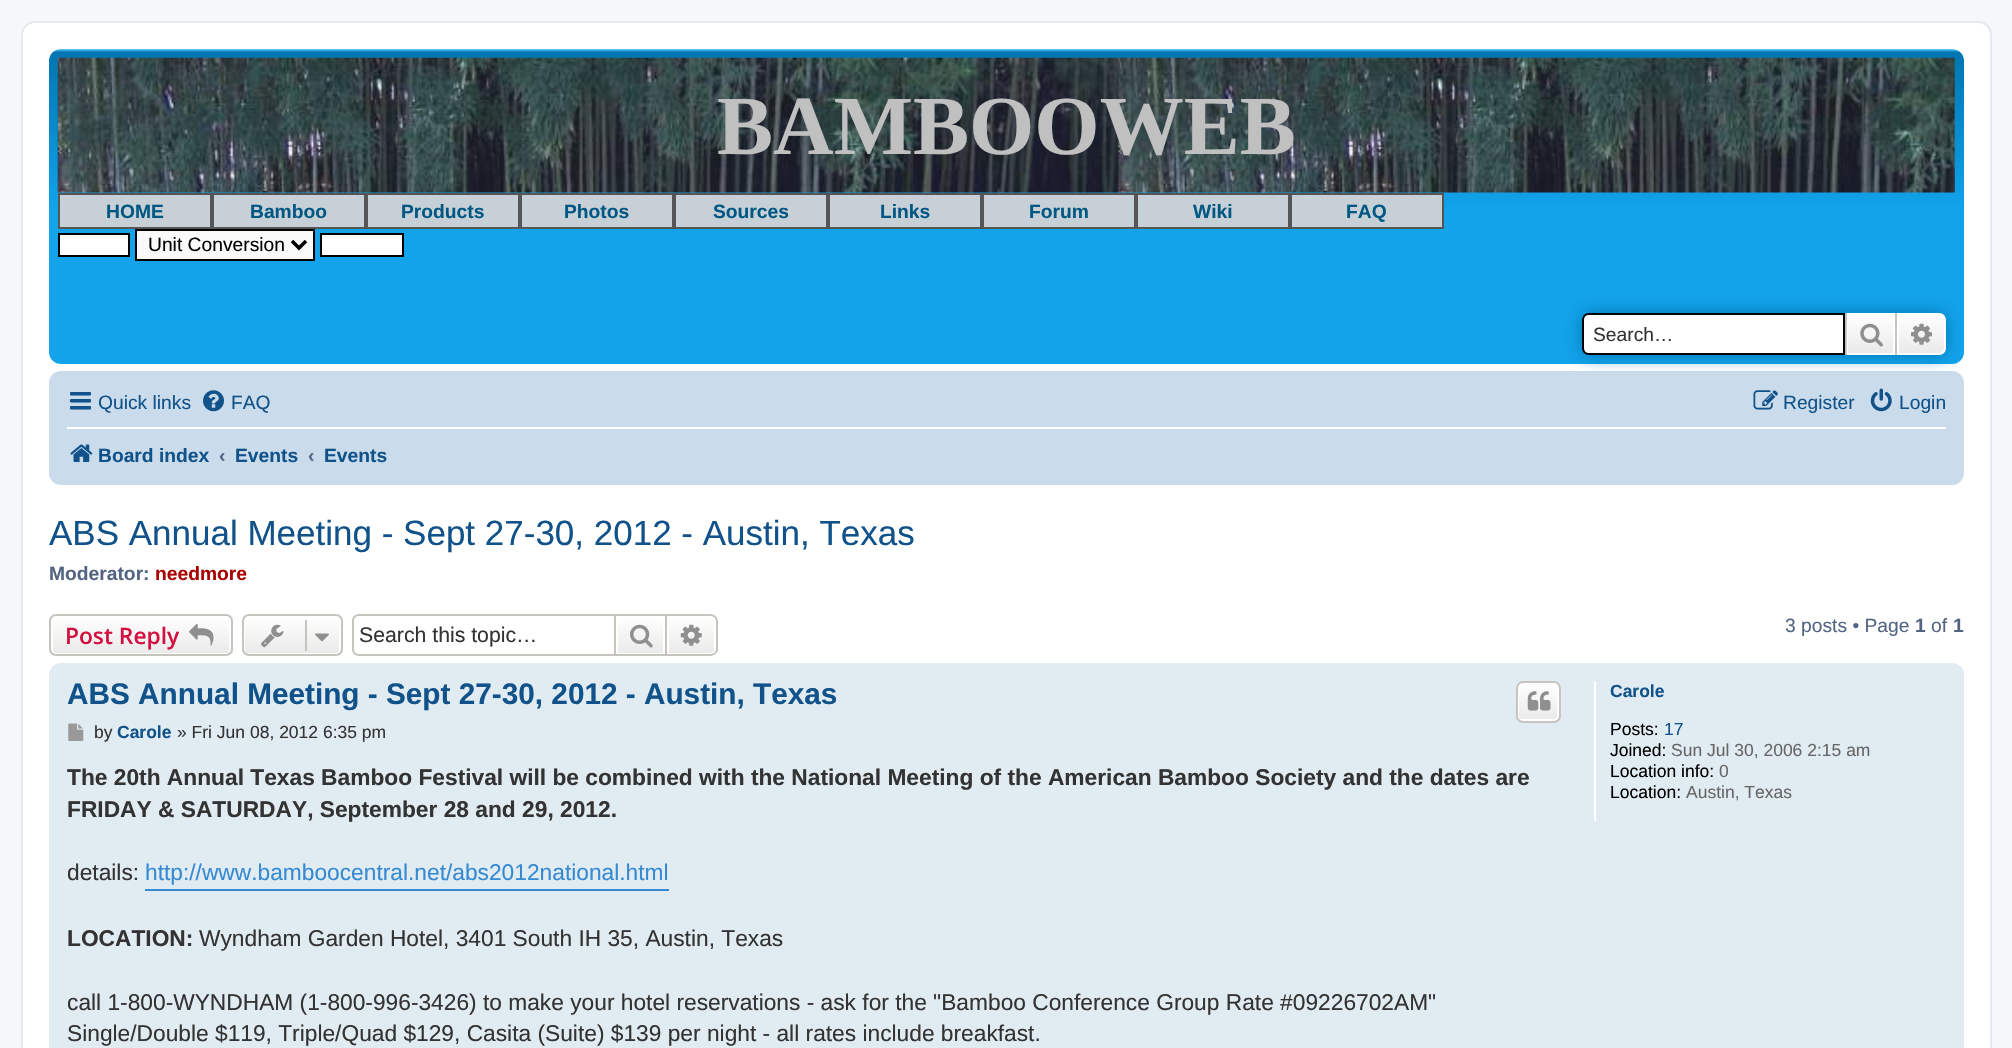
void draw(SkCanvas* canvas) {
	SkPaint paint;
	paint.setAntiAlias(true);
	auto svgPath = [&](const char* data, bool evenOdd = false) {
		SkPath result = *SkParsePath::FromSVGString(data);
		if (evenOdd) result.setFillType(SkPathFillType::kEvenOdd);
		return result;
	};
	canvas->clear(0xfff5f7fa);
	paint.setColor(0xffffffff);
	canvas->drawRoundRect(SkRect::MakeXYWH(22, 22, 1969, 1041), 13, 13, paint);
	paint.setStroke(true);
	paint.setStrokeWidth(2);
	paint.setColor(0xffe6e9ed);
	canvas->drawRoundRect(SkRect::MakeXYWH(22, 22, 1969, 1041), 13, 13, paint);
	paint.setStroke(false);
	{
		const SkColor colors[] = {0xff6aceff, 0xff0076b1, 0xff12a3eb, 0xff12a3eb};
		const float stops[] = {0, 0.01, 0.51, 1};
		const SkPoint ends[] = {{1006, 49}, {1006, 364}};
		paint.setShader(SkGradientShader::MakeLinear(ends, colors, stops, 4, SkTileMode::kClamp));
		paint.setAlpha(255);
	}
	canvas->drawRoundRect(SkRect::MakeXYWH(49, 49, 1915, 315), 12, 12, paint);
	canvas->drawImageRect(SkImages::DeferredFromEncodedData(SkData::MakeFromFileName("img1.png")), SkRect::MakeXYWH(57, 57, 1898, 136), SkSamplingOptions());
	SkFont f1(fontMgr->matchFamilyStyle("Liberation Serif", SkFontStyle::Bold()), 84);
	f1.setSubpixel(true);
	paint.setShader(nullptr);
	paint.setColor(0xffc0c0c0);
	canvas->drawString("BAMBOOWEB", 717, 154, f1, paint);
	paint.setColor(0xffc7d0d7);
	canvas->drawRect(SkRect::MakeXYWH(59, 194, 152, 34), paint);
	paint.setStroke(true);
	paint.setColor(0xff555555);
	canvas->drawRect(SkRect::MakeXYWH(59, 194, 152, 34), paint);
	SkFont f2(fontMgr->matchFamilyStyle("Liberation Sans", SkFontStyle::Bold()), 19.25);
	f2.setSubpixel(true);
	paint.setStroke(false);
	paint.setColor(0xff005784);
	canvas->drawString("HOME", 106, 218, f2, paint);
	paint.setColor(0xffc7d0d7);
	canvas->drawRect(SkRect::MakeXYWH(213, 194, 152, 34), paint);
	paint.setStroke(true);
	paint.setColor(0xff555555);
	canvas->drawRect(SkRect::MakeXYWH(213, 194, 152, 34), paint);
	paint.setStroke(false);
	paint.setColor(0xff005784);
	canvas->drawString("Bamboo", 250, 218, f2, paint);
	paint.setColor(0xffc7d0d7);
	canvas->drawRect(SkRect::MakeXYWH(367, 194, 152, 34), paint);
	paint.setStroke(true);
	paint.setColor(0xff555555);
	canvas->drawRect(SkRect::MakeXYWH(367, 194, 152, 34), paint);
	paint.setStroke(false);
	paint.setColor(0xff005784);
	canvas->drawString("Products", 401, 218, f2, paint);
	paint.setColor(0xffc7d0d7);
	canvas->drawRect(SkRect::MakeXYWH(521, 194, 152, 34), paint);
	paint.setStroke(true);
	paint.setColor(0xff555555);
	canvas->drawRect(SkRect::MakeXYWH(521, 194, 152, 34), paint);
	paint.setStroke(false);
	paint.setColor(0xff005784);
	canvas->drawString("Photos", 564, 218, f2, paint);
	paint.setColor(0xffc7d0d7);
	canvas->drawRect(SkRect::MakeXYWH(675, 194, 152, 34), paint);
	paint.setStroke(true);
	paint.setColor(0xff555555);
	canvas->drawRect(SkRect::MakeXYWH(675, 194, 152, 34), paint);
	paint.setStroke(false);
	paint.setColor(0xff005784);
	canvas->drawString("Sources", 713, 218, f2, paint);
	paint.setColor(0xffc7d0d7);
	canvas->drawRect(SkRect::MakeXYWH(829, 194, 152, 34), paint);
	paint.setStroke(true);
	paint.setColor(0xff555555);
	canvas->drawRect(SkRect::MakeXYWH(829, 194, 152, 34), paint);
	paint.setStroke(false);
	paint.setColor(0xff005784);
	canvas->drawString("Links", 880, 218, f2, paint);
	paint.setColor(0xffc7d0d7);
	canvas->drawRect(SkRect::MakeXYWH(983, 194, 152, 34), paint);
	paint.setStroke(true);
	paint.setColor(0xff555555);
	canvas->drawRect(SkRect::MakeXYWH(983, 194, 152, 34), paint);
	paint.setStroke(false);
	paint.setColor(0xff005784);
	canvas->drawString("Forum", 1029, 218, f2, paint);
	paint.setColor(0xffc7d0d7);
	canvas->drawRect(SkRect::MakeXYWH(1137, 194, 152, 34), paint);
	paint.setStroke(true);
	paint.setColor(0xff555555);
	canvas->drawRect(SkRect::MakeXYWH(1137, 194, 152, 34), paint);
	paint.setStroke(false);
	paint.setColor(0xff005784);
	canvas->drawString("Wiki", 1193, 218, f2, paint);
	paint.setColor(0xffc7d0d7);
	canvas->drawRect(SkRect::MakeXYWH(1291, 194, 152, 34), paint);
	paint.setStroke(true);
	paint.setColor(0xff555555);
	canvas->drawRect(SkRect::MakeXYWH(1291, 194, 152, 34), paint);
	paint.setStroke(false);
	paint.setColor(0xff005784);
	canvas->drawString("FAQ", 1346, 218, f2, paint);
	paint.setColor(0xffffffff);
	canvas->drawRect(SkRect::MakeXYWH(59, 234, 70, 22), paint);
	paint.setStroke(true);
	paint.setColor(0xff000000);
	canvas->drawRect(SkRect::MakeXYWH(59, 234, 70, 22), paint);
	paint.setStroke(false);
	paint.setColor(0xfffafafa);
	canvas->drawRect(SkRect::MakeXYWH(136, 230, 178, 30), paint);
	paint.setStroke(true);
	paint.setColor(0xff000000);
	canvas->drawRect(SkRect::MakeXYWH(136, 230, 178, 30), paint);
	paint.setStrokeWidth(3.5);
	canvas->drawPath(svgPath("M292 241L299 248L306 241"), paint);
	canvas->save();
	canvas->clipRect(SkRect::MakeXYWH(145, 233, 139, 24));
	SkFont f3(fontMgr->matchFamilyStyle("Liberation Sans", SkFontStyle::Normal()), 19.25);
	f3.setSubpixel(true);
	paint.setStroke(false);
	canvas->drawString("Unit Conversion", 148, 251, f3, paint);
	canvas->restore();
	paint.setColor(0xffffffff);
	canvas->drawRect(SkRect::MakeXYWH(321, 234, 82, 22), paint);
	paint.setStroke(true);
	paint.setStrokeWidth(2);
	paint.setColor(0xff000000);
	canvas->drawRect(SkRect::MakeXYWH(321, 234, 82, 22), paint);
	paint.setStroke(false);
	paint.setColor(0xffcadceb);
	canvas->drawRoundRect(SkRect::MakeXYWH(49, 371, 1915, 114), 12, 12, paint);
	paint.setColor(0xff0075b0);
	paint.setMaskFilter(SkMaskFilter::MakeBlur(kNormal_SkBlurStyle, 9));
	canvas->drawRoundRect(SkRect::MakeXYWH(1582, 313, 364, 42), 7, 7, paint);
	paint.setMaskFilter(nullptr);
	paint.setColor(0xffffffff);
	canvas->drawPath(svgPath("M1589 314H1844V354H1589C1585.5 354 1583 351.5 1583 348V320C1583 316.5 1585.5 314 1589 314Z"), paint);
	paint.setStroke(true);
	paint.setColor(0xff000000);
	canvas->drawPath(svgPath("M1589 314H1844V354H1589C1585.5 354 1583 351.5 1583 348V320C1583 316.5 1585.5 314 1589 314Z"), paint);
	paint.setStroke(false);
	paint.setColor(0xff333333);
	canvas->drawString("Search…", 1593, 341, f3, paint);
	{
		const SkColor colors[] = {0xffffffff, 0xffe9e9e9};
		const float stops[] = {0, 1};
		const SkPoint ends[] = {{1871, 313}, {1871, 355}};
		paint.setShader(SkGradientShader::MakeLinear(ends, colors, stops, 2, SkTileMode::kClamp));
		paint.setAlpha(255);
	}
	canvas->drawRect(SkRect::MakeXYWH(1848, 315, 45, 38), paint);
	paint.setStroke(true);
	paint.setShader(nullptr);
	paint.setColor(0xffffffff);
	canvas->drawRect(SkRect::MakeXYWH(1847, 314, 47, 40), paint);
	paint.setStroke(false);
	paint.setColor(0xffc7c3bf);
	canvas->drawRect(SkRect::MakeXYWH(1895, 313, 2, 42), paint);
	canvas->drawRect(SkRect::MakeXYWH(1845, 313, 2, 42), paint);
	canvas->drawImageRect(SkImages::DeferredFromEncodedData(SkData::MakeFromFileName("img2.png")), SkRect::MakeXYWH(1860, 323, 23, 24), SkSamplingOptions());
	{
		const SkColor colors[] = {0xffffffff, 0xffe9e9e9};
		const float stops[] = {0, 1};
		const SkPoint ends[] = {{1922, 313}, {1922, 355}};
		paint.setShader(SkGradientShader::MakeLinear(ends, colors, stops, 2, SkTileMode::kClamp));
		paint.setAlpha(255);
	}
	canvas->drawPath(svgPath("M1898 314H1939C1942.5 314 1945 316.5 1945 320V348C1945 351.5 1942.5 354 1939 354H1898Z"), paint);
	paint.setStroke(true);
	paint.setShader(nullptr);
	paint.setColor(0xffffffff);
	canvas->drawPath(svgPath("M1898 314H1939C1942.5 314 1945 316.5 1945 320V348C1945 351.5 1942.5 354 1939 354H1898Z"), paint);
	canvas->drawImageRect(SkImages::DeferredFromEncodedData(SkData::MakeFromFileName("img3.png")), SkRect::MakeXYWH(1911, 323, 21, 22), SkSamplingOptions());
	canvas->drawImageRect(SkImages::DeferredFromEncodedData(SkData::MakeFromFileName("img4.png")), SkRect::MakeXYWH(70, 392, 21, 18), SkSamplingOptions());
	paint.setStroke(false);
	paint.setColor(0xff105289);
	canvas->drawString("Quick links", 98, 409, f3, paint);
	canvas->drawImageRect(SkImages::DeferredFromEncodedData(SkData::MakeFromFileName("img5.png")), SkRect::MakeXYWH(203, 390, 21, 22), SkSamplingOptions());
	canvas->drawString("FAQ", 231, 409, f3, paint);
	canvas->drawImageRect(SkImages::DeferredFromEncodedData(SkData::MakeFromFileName("img6.png")), SkRect::MakeXYWH(1753, 390, 25, 20), SkSamplingOptions());
	canvas->drawString("Register", 1783, 409, f3, paint);
	canvas->drawImageRect(SkImages::DeferredFromEncodedData(SkData::MakeFromFileName("img7.png")), SkRect::MakeXYWH(1870, 388, 22, 24), SkSamplingOptions());
	canvas->drawString("Login", 1899, 409, f3, paint);
	paint.setColor(0xffffffff);
	canvas->drawRect(SkRect::MakeXYWH(67, 427, 1879, 2), paint);
	canvas->drawImageRect(SkImages::DeferredFromEncodedData(SkData::MakeFromFileName("img8.png")), SkRect::MakeXYWH(70, 444, 23, 18), SkSamplingOptions());
	paint.setColor(0xff105289);
	canvas->drawString("Board index", 98, 462, f2, paint);
	paint.setColor(0xff536482);
	canvas->drawString("‹", 219, 462, f2, paint);
	paint.setColor(0xff105289);
	canvas->drawString("Events", 235, 462, f2, paint);
	paint.setColor(0xff536482);
	canvas->drawString("‹", 308, 462, f2, paint);
	paint.setColor(0xff105289);
	canvas->drawString("Events", 324, 462, f2, paint);
	SkFont f4(fontMgr->matchFamilyStyle("Liberation Sans", SkFontStyle::Normal()), 35);
	f4.setSubpixel(true);
	canvas->drawString("ABS Annual Meeting - Sept 27-30, 2012 - Austin, Texas", 49, 545, f4, paint);
	paint.setColor(0xff536482);
	canvas->drawString("Moderator:", 49, 580, f2, paint);
	paint.setColor(0xffaa0000);
	canvas->drawString("needmore", 155, 580, f2, paint);
	canvas->save();
	canvas->clipPath(svgPath("M56 614H226C230 614 233 617 233 621V649C233 653 230 656 226 656H56C52 656 49 653 49 649V621C49 617 52 614 56 614Z"), true);
	{
		const SkColor colors[] = {0xffffffff, 0xffe9e9e9};
		const float stops[] = {0, 1};
		const SkPoint ends[] = {{141, 616}, {141, 655}};
		paint.setShader(SkGradientShader::MakeLinear(ends, colors, stops, 2, SkTileMode::kClamp));
		paint.setAlpha(255);
	}
	canvas->drawRect(SkRect::MakeXYWH(49, 616, 184, 39), paint);
	canvas->restore();
	paint.setStroke(true);
	paint.setShader(nullptr);
	paint.setColor(0xffffffff);
	canvas->drawRoundRect(SkRect::MakeXYWH(52, 617, 178, 37), 4, 4, paint);
	paint.setColor(0xffc7c3bf);
	canvas->drawRoundRect(SkRect::MakeXYWH(50, 615, 182, 40), 6, 6, paint);
	SkFont f5(fontMgr->matchFamilyStyle("Open Sans", SkFontStyle(600, SkFontStyle::kNormal_Width, SkFontStyle::kUpright_Slant)), 22.75);
	f5.setSubpixel(true);
	paint.setStroke(false);
	paint.setColor(0xffd31141);
	canvas->drawString("Post Reply", 65, 644, f5, paint);
	canvas->drawImageRect(SkImages::DeferredFromEncodedData(SkData::MakeFromFileName("img9.png")), SkRect::MakeXYWH(189, 624, 25, 22), SkSamplingOptions());
	canvas->save();
	canvas->clipPath(svgPath("M249 614H336C340 614 343 617 343 621V649C343 653 340 656 336 656H249C245 656 242 653 242 649V621C242 617 245 614 249 614Z"), true);
	{
		const SkColor colors[] = {0xffffffff, 0xffe9e9e9};
		const float stops[] = {0, 1};
		const SkPoint ends[] = {{292, 616}, {292, 655}};
		paint.setShader(SkGradientShader::MakeLinear(ends, colors, stops, 2, SkTileMode::kClamp));
		paint.setAlpha(255);
	}
	canvas->drawRect(SkRect::MakeXYWH(242, 616, 101, 39), paint);
	canvas->restore();
	paint.setStroke(true);
	paint.setShader(nullptr);
	paint.setColor(0xffffffff);
	canvas->drawRoundRect(SkRect::MakeXYWH(244, 617, 96, 37), 4, 4, paint);
	paint.setColor(0xffc7c3bf);
	canvas->drawRoundRect(SkRect::MakeXYWH(243, 615, 99, 40), 6, 6, paint);
	canvas->drawImageRect(SkImages::DeferredFromEncodedData(SkData::MakeFromFileName("img10.png")), SkRect::MakeXYWH(261, 624, 23, 24), SkSamplingOptions());
	paint.setStroke(false);
	canvas->drawRect(SkRect::MakeXYWH(305, 620, 2, 31), paint);
	canvas->drawImageRect(SkImages::DeferredFromEncodedData(SkData::MakeFromFileName("img11.png")), SkRect::MakeXYWH(315, 633, 14, 9), SkSamplingOptions());
	canvas->drawPath(svgPath("M359 614H614V656H359C355 656 352 653 352 649V621C352 617 355 614 359 614ZM359 616H614V654H359C356 654 354 652 354 649V621C354 618 356 616 359 616Z", true), paint);
	SkFont f6(fontMgr->matchFamilyStyle("Liberation Sans", SkFontStyle::Normal()), 21.25);
	f6.setSubpixel(true);
	paint.setColor(0xff333333);
	canvas->drawString("Search this topic…", 359, 642, f6, paint);
	{
		const SkColor colors[] = {0xffffffff, 0xffe9e9e9};
		const float stops[] = {0, 1};
		const SkPoint ends[] = {{641, 616}, {641, 655}};
		paint.setShader(SkGradientShader::MakeLinear(ends, colors, stops, 2, SkTileMode::kClamp));
		paint.setAlpha(255);
	}
	canvas->drawRect(SkRect::MakeXYWH(618, 620, 45, 33), paint);
	paint.setStroke(true);
	paint.setShader(nullptr);
	paint.setColor(0xffc7c3bf);
	canvas->drawRect(SkRect::MakeXYWH(615, 615, 51, 40), paint);
	canvas->drawImageRect(SkImages::DeferredFromEncodedData(SkData::MakeFromFileName("img12.png")), SkRect::MakeXYWH(630, 624, 23, 24), SkSamplingOptions());
	paint.setStroke(false);
	{
		const SkColor colors[] = {0xffffffff, 0xffe9e9e9};
		const float stops[] = {0, 1};
		const SkPoint ends[] = {{691, 616}, {691, 655}};
		paint.setShader(SkGradientShader::MakeLinear(ends, colors, stops, 2, SkTileMode::kClamp));
		paint.setAlpha(255);
	}
	canvas->drawPath(svgPath("M668 617H711C713 617 715 619 715 621V650C715 652 713 654 711 654H668Z"), paint);
	paint.setStroke(true);
	paint.setShader(nullptr);
	paint.setColor(0xffffffff);
	canvas->drawPath(svgPath("M668 617H711C713 617 715 619 715 621V650C715 652 713 654 711 654H668Z"), paint);
	paint.setStroke(false);
	paint.setColor(0xffc7c3bf);
	canvas->drawPath(svgPath("M667 614H710C714 614 718 617 718 621V649C718 653 714 656 710 656H667ZM667 616H710C713 616 716 618 716 621V649C716 652 713 654 710 654H667Z", true), paint);
	canvas->drawImageRect(SkImages::DeferredFromEncodedData(SkData::MakeFromFileName("img13.png")), SkRect::MakeXYWH(680, 624, 22, 22), SkSamplingOptions());
	paint.setColor(0xff536482);
	canvas->drawString("3 posts • Page", 1785, 632, f3, paint);
	canvas->drawString("1", 1915, 632, f2, paint);
	canvas->drawString("of", 1931, 632, f3, paint);
	canvas->drawString("1", 1953, 632, f2, paint);
	paint.setColor(0xffe1ebf2);
	canvas->drawRoundRect(SkRect::MakeXYWH(49, 663, 1915, 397), 12, 12, paint);
	SkFont f7(fontMgr->matchFamilyStyle("Liberation Sans", SkFontStyle::Bold()), 29.75);
	f7.setSubpixel(true);
	paint.setColor(0xff105289);
	canvas->drawString("ABS Annual Meeting - Sept 27-30, 2012 - Austin, Texas", 67, 704, f7, paint);
	canvas->save();
	canvas->clipPath(svgPath("M1523 681H1554C1558 681 1561 684 1561 688V716C1561 720 1558 723 1554 723H1523C1519 723 1516 720 1516 716V688C1516 684 1519 681 1523 681Z"), true);
	{
		const SkColor colors[] = {0xffffffff, 0xffe9e9e9};
		const float stops[] = {0, 1};
		const SkPoint ends[] = {{1538, 683}, {1538, 721}};
		paint.setShader(SkGradientShader::MakeLinear(ends, colors, stops, 2, SkTileMode::kClamp));
		paint.setAlpha(255);
	}
	canvas->drawRect(SkRect::MakeXYWH(1516, 683, 45, 38), paint);
	canvas->restore();
	paint.setStroke(true);
	paint.setShader(nullptr);
	paint.setColor(0xffffffff);
	canvas->drawRoundRect(SkRect::MakeXYWH(1518, 684, 40, 36), 4, 4, paint);
	paint.setColor(0xffc7c3bf);
	canvas->drawRoundRect(SkRect::MakeXYWH(1517, 682, 43, 40), 6, 6, paint);
	canvas->drawImageRect(SkImages::DeferredFromEncodedData(SkData::MakeFromFileName("img14.png")), SkRect::MakeXYWH(1527, 691, 24, 20), SkSamplingOptions());
	canvas->drawImageRect(SkImages::DeferredFromEncodedData(SkData::MakeFromFileName("img15.png")), SkRect::MakeXYWH(68, 723, 16, 18), SkSamplingOptions());
	SkFont f8(fontMgr->matchFamilyStyle("Liberation Sans", SkFontStyle::Normal()), 17.5);
	f8.setSubpixel(true);
	paint.setStroke(false);
	paint.setColor(0xff333333);
	canvas->drawString("by", 94, 738, f8, paint);
	SkFont f9(fontMgr->matchFamilyStyle("Liberation Sans", SkFontStyle::Bold()), 17.5);
	f9.setSubpixel(true);
	paint.setColor(0xff105289);
	canvas->drawString("Carole", 117, 738, f9, paint);
	paint.setColor(0xff333333);
	canvas->drawString("» Fri Jun 08, 2012 6:35 pm", 177, 738, f8, paint);
	canvas->save();
	canvas->clipRect(SkRect::MakeXYWH(67, 763, 1499, 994));
	SkFont f10(fontMgr->matchFamilyStyle("Liberation Sans", SkFontStyle::Bold()), 22.75);
	f10.setSubpixel(true);
	canvas->drawString("The 20th Annual Texas Bamboo Festival will be combined with the National Meeting of the American Bamboo Society and the dates are", 67, 785, f10, paint);
	canvas->restore();
	canvas->drawString("FRIDAY & SATURDAY, September 28 and 29, 2012.", 67, 817, f10, paint);
	SkFont f11(fontMgr->matchFamilyStyle("Liberation Sans", SkFontStyle::Normal()), 22.75);
	f11.setSubpixel(true);
	canvas->drawString("details:", 67, 880, f11, paint);
	paint.setColor(0xff368ad2);
	canvas->drawRect(SkRect::MakeXYWH(145, 889, 524, 2), paint);
	canvas->drawString("http://www.bamboocentral.net/abs2012national.html", 145, 880, f11, paint);
	paint.setColor(0xff333333);
	canvas->drawString("LOCATION:", 67, 946, f10, paint);
	canvas->drawString("Wyndham Garden Hotel, 3401 South IH 35, Austin, Texas", 199, 946, f11, paint);
	canvas->drawString("call 1-800-WYNDHAM (1-800-996-3426) to make your hotel reservations - ask for the \"Bamboo Conference Group Rate #09226702AM\"", 67, 1010, f11, paint);
	canvas->drawString("Single/Double $119, Triple/Quad $129, Casita (Suite) $139 per night - all rates include breakfast.", 67, 1041, f11, paint);
	paint.setColor(0xffffffff);
	canvas->drawRect(SkRect::MakeXYWH(1594, 681, 2, 140), paint);
	paint.setColor(0xff105289);
	canvas->drawString("Carole", 1610, 697, f9, paint);
	paint.setColor(0xff000000);
	canvas->drawString("Posts:", 1610, 735, f8, paint);
	paint.setColor(0xff105289);
	canvas->drawString("17", 1664, 735, f8, paint);
	paint.setColor(0xff000000);
	canvas->drawString("Joined:", 1610, 756, f8, paint);
	paint.setColor(0xff666666);
	canvas->drawString("Sun Jul 30, 2006 2:15 am", 1671, 756, f8, paint);
	paint.setColor(0xff000000);
	canvas->drawString("Location info:", 1610, 777, f8, paint);
	paint.setColor(0xff666666);
	canvas->drawString("0", 1719, 777, f8, paint);
	paint.setColor(0xff000000);
	canvas->drawString("Location:", 1610, 798, f8, paint);
	paint.setColor(0xff666666);
	canvas->drawString("Austin, Texas", 1686, 798, f8, paint);
}
